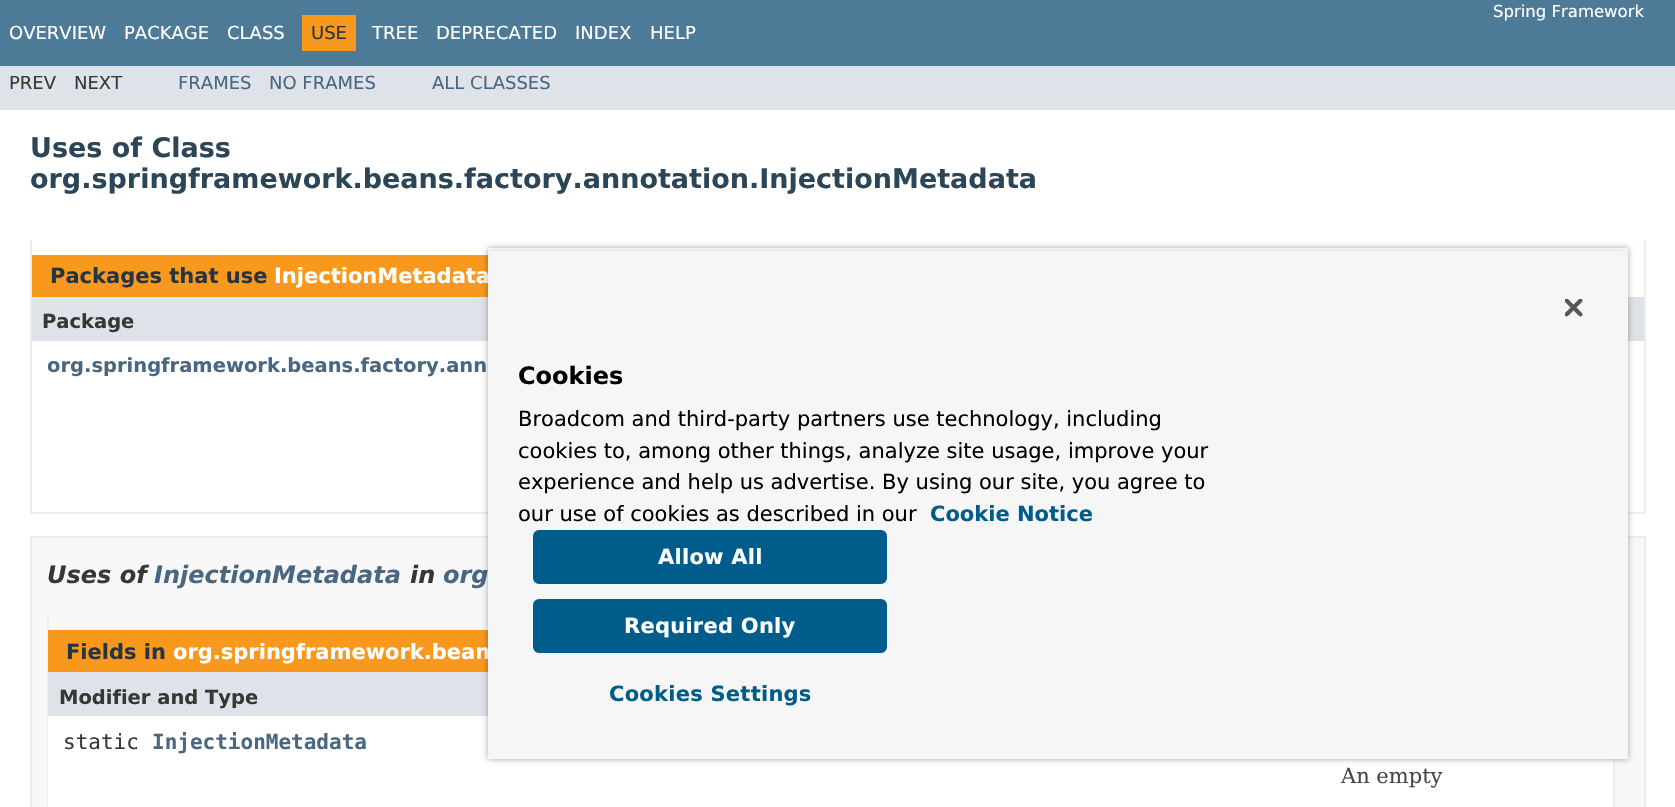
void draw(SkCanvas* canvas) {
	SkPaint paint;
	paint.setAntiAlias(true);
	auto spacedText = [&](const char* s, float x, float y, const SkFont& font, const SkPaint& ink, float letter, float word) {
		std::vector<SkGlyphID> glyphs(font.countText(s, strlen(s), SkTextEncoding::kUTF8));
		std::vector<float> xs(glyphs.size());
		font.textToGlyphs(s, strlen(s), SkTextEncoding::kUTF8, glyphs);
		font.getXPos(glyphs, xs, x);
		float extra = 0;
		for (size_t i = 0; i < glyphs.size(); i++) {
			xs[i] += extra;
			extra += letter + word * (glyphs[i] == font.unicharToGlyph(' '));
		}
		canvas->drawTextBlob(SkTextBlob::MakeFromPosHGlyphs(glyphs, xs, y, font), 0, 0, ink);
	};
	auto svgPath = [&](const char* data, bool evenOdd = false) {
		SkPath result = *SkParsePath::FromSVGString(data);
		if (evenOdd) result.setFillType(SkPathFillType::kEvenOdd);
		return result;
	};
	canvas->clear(0xffffffff);
	paint.setColor(0xff4d7a97);
	canvas->drawRect(SkRect::MakeXYWH(0, 0, 1675, 66), paint);
	SkFont f1(fontMgr->matchFamilyStyle("DejaVu Sans", SkFontStyle::Normal()), 16.5);
	f1.setSubpixel(true);
	paint.setColor(0xffffffff);
	canvas->drawString("Spring Framework", 1493, 17, f1, paint);
	SkFont f2(fontMgr->matchFamilyStyle("DejaVu Sans", SkFontStyle::Normal()), 18);
	f2.setSubpixel(true);
	canvas->drawString("OVERVIEW", 9, 39, f2, paint);
	canvas->drawString("PACKAGE", 124, 39, f2, paint);
	canvas->drawString("CLASS", 227, 39, f2, paint);
	paint.setColor(0xfff8981d);
	canvas->drawRect(SkRect::MakeXYWH(302, 15, 54, 36), paint);
	paint.setColor(0xff253441);
	canvas->drawString("USE", 311, 39, f2, paint);
	paint.setColor(0xffffffff);
	canvas->drawString("TREE", 372, 39, f2, paint);
	canvas->drawString("DEPRECATED", 436, 39, f2, paint);
	canvas->drawString("INDEX", 575, 39, f2, paint);
	canvas->drawString("HELP", 650, 39, f2, paint);
	paint.setColor(0xffdee3e9);
	canvas->drawRect(SkRect::MakeXYWH(0, 66, 1675, 44), paint);
	paint.setColor(0xff353833);
	canvas->drawString("PREV", 9, 89, f2, paint);
	canvas->drawString("NEXT", 74, 89, f2, paint);
	paint.setColor(0xff4a6782);
	canvas->drawString("FRAMES", 178, 89, f2, paint);
	canvas->drawString("NO FRAMES", 269, 89, f2, paint);
	canvas->drawString("ALL CLASSES", 432, 89, f2, paint);
	SkFont f3(fontMgr->matchFamilyStyle("DejaVu Sans", SkFontStyle::Bold()), 27);
	f3.setSubpixel(true);
	paint.setColor(0xff2c4557);
	canvas->drawString("Uses of Class", 30, 157, f3, paint);
	canvas->drawString("org.springframework.beans.factory.annotation.InjectionMetadata", 30, 188, f3, paint);
	paint.setColor(0xffeeeeee);
	canvas->drawRect(SkRect::MakeXYWH(1644, 240, 2, 273), paint);
	canvas->drawRect(SkRect::MakeXYWH(30, 512, 1616, 2), paint);
	canvas->drawRect(SkRect::MakeXYWH(30, 240, 2, 273), paint);
	paint.setColor(0xfff8981d);
	canvas->drawRect(SkRect::MakeXYWH(32, 255, 456, 42), paint);
	SkFont f4(fontMgr->matchFamilyStyle("DejaVu Sans", SkFontStyle::Bold()), 21);
	f4.setSubpixel(true);
	paint.setColor(0xff253441);
	canvas->drawString("Packages that use", 50, 283, f4, paint);
	paint.setColor(0xffffffff);
	canvas->drawString("InjectionMetadata", 274, 283, f4, paint);
	paint.setColor(0xffdee3e9);
	canvas->drawRect(SkRect::MakeXYWH(32, 297, 456, 44), paint);
	SkFont f5(fontMgr->matchFamilyStyle("DejaVu Sans", SkFontStyle::Bold()), 19.5);
	f5.setSubpixel(true);
	paint.setColor(0xff353833);
	canvas->drawString("Package", 42, 328, f5, paint);
	paint.setColor(0xffdee3e9);
	canvas->drawRect(SkRect::MakeXYWH(1628, 297, 16, 44), paint);
	paint.setColor(0xff4a6782);
	canvas->drawString("org.springframework.beans.factory.ann", 47, 372, f5, paint);
	paint.setColor(0xfff8f8f8);
	canvas->drawRect(SkRect::MakeXYWH(31, 537, 1614, 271), paint);
	paint.setStroke(true);
	paint.setStrokeWidth(2);
	paint.setColor(0xffededed);
	canvas->drawRect(SkRect::MakeXYWH(31, 537, 1614, 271), paint);
	SkFont f6(fontMgr->matchFamilyStyle("DejaVu Sans", SkFontStyle::BoldItalic()), 24);
	f6.setSubpixel(true);
	paint.setStroke(false);
	paint.setColor(0xff353833);
	canvas->drawString("Uses of", 47, 583, f6, paint);
	paint.setColor(0xff4a6782);
	canvas->drawString("InjectionMetadata", 154, 583, f6, paint);
	paint.setColor(0xff353833);
	canvas->drawString("in", 410, 583, f6, paint);
	paint.setColor(0xff4a6782);
	canvas->drawString("org", 443, 583, f6, paint);
	paint.setColor(0xffeeeeee);
	canvas->drawRect(SkRect::MakeXYWH(1613, 759, 2, 48), paint);
	canvas->drawRect(SkRect::MakeXYWH(47, 615, 2, 192), paint);
	paint.setColor(0xfff8981d);
	canvas->drawRect(SkRect::MakeXYWH(48, 630, 440, 42), paint);
	paint.setColor(0xff253441);
	canvas->drawString("Fields in", 66, 659, f4, paint);
	paint.setColor(0xffffffff);
	canvas->drawString("org.springframework.bean", 173, 659, f4, paint);
	paint.setColor(0xffdee3e9);
	canvas->drawRect(SkRect::MakeXYWH(48, 672, 440, 44), paint);
	paint.setColor(0xff353833);
	canvas->drawString("Modifier and Type", 59, 704, f5, paint);
	paint.setColor(0xffffffff);
	canvas->drawRect(SkRect::MakeXYWH(48, 716, 1565, 91), paint);
	SkFont f7(fontMgr->matchFamilyStyle("DejaVu Sans Mono", SkFontStyle::Normal()), 21);
	f7.setSubpixel(true);
	paint.setColor(0xff353833);
	canvas->drawString("static", 63, 749, f7, paint);
	SkFont f8(fontMgr->matchFamilyStyle("DejaVu Sans Mono", SkFontStyle::Bold()), 21);
	f8.setSubpixel(true);
	paint.setColor(0xff4a6782);
	canvas->drawString("InjectionMetadata", 152, 749, f8, paint);
	SkFont f9(fontMgr->matchFamilyStyle("DejaVu Serif", SkFontStyle::Normal()), 21);
	f9.setSubpixel(true);
	paint.setColor(0xff474747);
	canvas->drawString("An empty", 1341, 783, f9, paint);
	canvas->save();
	canvas->clipPath(svgPath("M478 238H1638V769H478ZM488 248H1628V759H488Z", true), true);
	paint.setColor(0x59000000);
	paint.setMaskFilter(SkMaskFilter::MakeBlur(kNormal_SkBlurStyle, 3));
	canvas->drawRect(SkRect::MakeXYWH(488, 248, 1140, 511), paint);
	paint.setMaskFilter(nullptr);
	canvas->restore();
	canvas->save();
	canvas->clipRect(SkRect::MakeXYWH(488, 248, 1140, 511));
	paint.setColor(0x33000000);
	paint.setMaskFilter(SkMaskFilter::MakeBlur(kNormal_SkBlurStyle, 3));
	canvas->drawRect(SkRect::MakeXYWH(488, 251, 1140, 508), paint);
	paint.setMaskFilter(nullptr);
	canvas->restore();
	paint.setColor(0xfff6f6f6);
	canvas->drawRect(SkRect::MakeXYWH(488, 251, 1140, 508), paint);
	canvas->drawImageRect(SkImages::DeferredFromEncodedData(SkData::MakeFromFileName("img1.png")), SkRect::MakeXYWH(1565, 299, 18, 18), SkSamplingOptions());
	SkFont f10(fontMgr->matchFamilyStyle("DejaVu Sans", SkFontStyle::Bold()), 24);
	f10.setSubpixel(true);
	paint.setColor(0xff000000);
	canvas->drawString("Cookies", 518, 384, f10, paint);
	SkFont f11(fontMgr->matchFamilyStyle("DejaVu Sans", SkFontStyle::Normal()), 21);
	f11.setSubpixel(true);
	canvas->drawString("Broadcom and third-party partners use technology, including", 518, 426, f11, paint);
	canvas->drawString("cookies to, among other things, analyze site usage, improve your", 518, 458, f11, paint);
	canvas->drawString("experience and help us advertise. By using our site, you agree to", 518, 489, f11, paint);
	canvas->drawString("our use of cookies as described in our", 518, 521, f11, paint);
	paint.setColor(0xff005c8a);
	canvas->drawString("Cookie Notice", 930, 521, f4, paint);
	canvas->drawRoundRect(SkRect::MakeXYWH(534, 531, 352, 52), 5, 5, paint);
	paint.setStroke(true);
	canvas->drawRoundRect(SkRect::MakeXYWH(534, 531, 352, 52), 5, 5, paint);
	paint.setStroke(false);
	paint.setColor(0xffffffff);
	spacedText("Allow All", 658, 564, f4, paint, 0.25, 0);
	paint.setColor(0xff005c8a);
	canvas->drawRoundRect(SkRect::MakeXYWH(534, 600, 352, 52), 5, 5, paint);
	paint.setStroke(true);
	canvas->drawRoundRect(SkRect::MakeXYWH(534, 600, 352, 52), 5, 5, paint);
	paint.setStroke(false);
	paint.setColor(0xffffffff);
	spacedText("Required Only", 624, 633, f4, paint, 0.25, 0);
	paint.setColor(0xff005c8a);
	spacedText("Cookies Settings", 609, 701, f4, paint, 0.25, 0);
}
